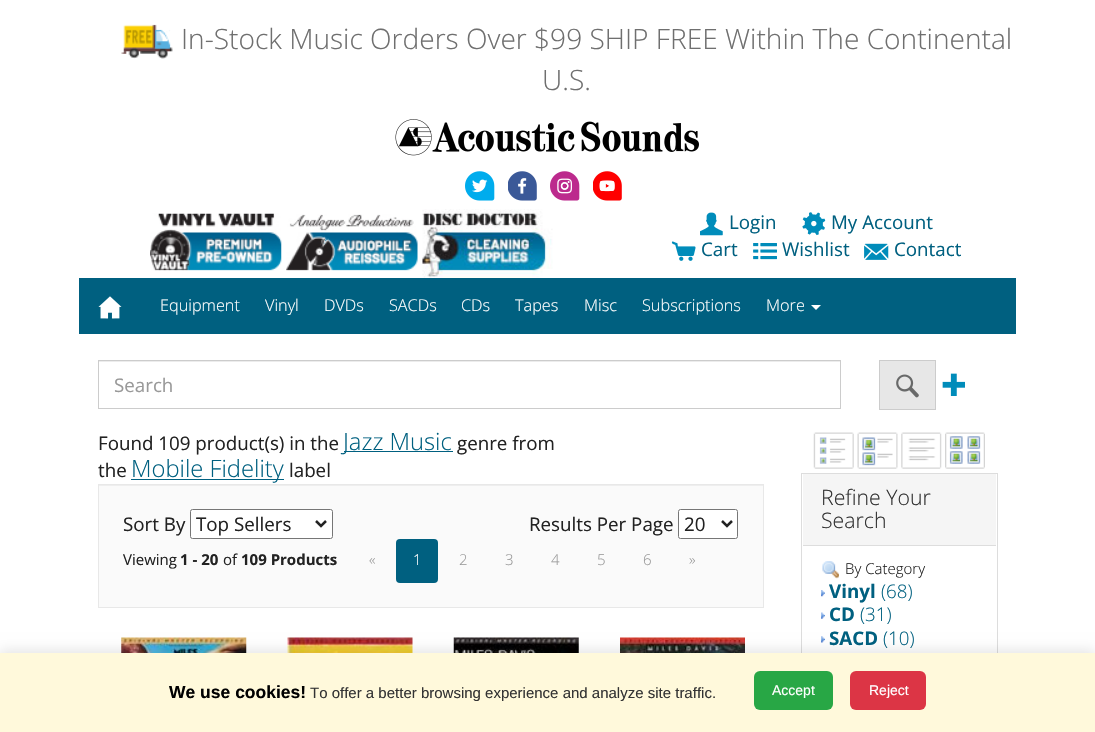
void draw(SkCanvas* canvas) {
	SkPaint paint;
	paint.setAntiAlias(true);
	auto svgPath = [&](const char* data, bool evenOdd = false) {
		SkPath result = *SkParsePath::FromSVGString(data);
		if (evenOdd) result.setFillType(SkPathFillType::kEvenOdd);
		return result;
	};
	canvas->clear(0xffffffff);
	canvas->drawImageRect(SkImages::DeferredFromEncodedData(SkData::MakeFromFileName("img1.png")), SkRect::MakeXYWH(121, 24, 52, 35), SkSamplingOptions());
	SkFont f1(fontMgr->matchFamilyStyle("Open Sans", SkFontStyle(300, SkFontStyle::kNormal_Width, SkFontStyle::kUpright_Slant)), 28.1);
	f1.setSubpixel(true);
	paint.setColor(0xff6f6f6f);
	canvas->drawString("In-Stock Music Orders Over $99 SHIP FREE Within The Continental", 181, 49, f1, paint);
	canvas->drawString("U.S.", 542, 90, f1, paint);
	canvas->drawImageRect(SkImages::DeferredFromEncodedData(SkData::MakeFromFileName("img2.png")), SkRect::MakeXYWH(395, 119, 304, 37), SkSamplingOptions());
	canvas->drawImageRect(SkImages::DeferredFromEncodedData(SkData::MakeFromFileName("img3.png")), SkRect::MakeXYWH(465, 171, 30, 30), SkSamplingOptions());
	canvas->drawImageRect(SkImages::DeferredFromEncodedData(SkData::MakeFromFileName("img4.png")), SkRect::MakeXYWH(508, 171, 29, 30), SkSamplingOptions());
	canvas->drawImageRect(SkImages::DeferredFromEncodedData(SkData::MakeFromFileName("img5.png")), SkRect::MakeXYWH(550, 171, 30, 30), SkSamplingOptions());
	canvas->drawImageRect(SkImages::DeferredFromEncodedData(SkData::MakeFromFileName("img6.png")), SkRect::MakeXYWH(593, 171, 29, 30), SkSamplingOptions());
	canvas->drawImageRect(SkImages::DeferredFromEncodedData(SkData::MakeFromFileName("img7.png")), SkRect::MakeXYWH(150, 213, 132, 58), SkSamplingOptions());
	canvas->drawImageRect(SkImages::DeferredFromEncodedData(SkData::MakeFromFileName("img8.png")), SkRect::MakeXYWH(286, 214, 132, 57), SkSamplingOptions());
	canvas->drawImageRect(SkImages::DeferredFromEncodedData(SkData::MakeFromFileName("img9.png")), SkRect::MakeXYWH(422, 209, 131, 69), SkSamplingOptions());
	canvas->drawImageRect(SkImages::DeferredFromEncodedData(SkData::MakeFromFileName("img10.png")), SkRect::MakeXYWH(700, 212, 23, 24), SkSamplingOptions());
	SkFont f2(fontMgr->matchFamilyStyle("Open Sans", SkFontStyle::Normal()), 18.75);
	f2.setSubpixel(true);
	paint.setColor(0xff006080);
	canvas->drawString("Login", 729, 229, f2, paint);
	canvas->drawImageRect(SkImages::DeferredFromEncodedData(SkData::MakeFromFileName("img11.png")), SkRect::MakeXYWH(802, 212, 24, 24), SkSamplingOptions());
	canvas->drawString("My Account", 831, 229, f2, paint);
	canvas->drawImageRect(SkImages::DeferredFromEncodedData(SkData::MakeFromFileName("img12.png")), SkRect::MakeXYWH(671, 241, 25, 20), SkSamplingOptions());
	canvas->drawString("Cart", 701, 256, f2, paint);
	canvas->drawImageRect(SkImages::DeferredFromEncodedData(SkData::MakeFromFileName("img13.png")), SkRect::MakeXYWH(753, 243, 24, 17), SkSamplingOptions());
	canvas->drawString("Wishlist", 782, 256, f2, paint);
	canvas->drawImageRect(SkImages::DeferredFromEncodedData(SkData::MakeFromFileName("img14.png")), SkRect::MakeXYWH(864, 243, 25, 17), SkSamplingOptions());
	canvas->drawString("Contact", 894, 256, f2, paint);
	canvas->drawRect(SkRect::MakeXYWH(79, 278, 937, 56), paint);
	canvas->drawImageRect(SkImages::DeferredFromEncodedData(SkData::MakeFromFileName("img15.png")), SkRect::MakeXYWH(98, 296, 24, 23), SkSamplingOptions());
	SkFont f3(fontMgr->matchFamilyStyle("Open Sans", SkFontStyle(300, SkFontStyle::kNormal_Width, SkFontStyle::kUpright_Slant)), 16.25);
	f3.setSubpixel(true);
	paint.setColor(0xffffffff);
	canvas->drawString("Equipment", 160, 311, f3, paint);
	canvas->drawString("Vinyl", 265, 311, f3, paint);
	canvas->drawString("DVDs", 324, 311, f3, paint);
	canvas->drawString("SACDs", 389, 311, f3, paint);
	canvas->drawString("CDs", 461, 311, f3, paint);
	canvas->drawString("Tapes", 515, 311, f3, paint);
	canvas->drawString("Misc", 584, 311, f3, paint);
	canvas->drawString("Subscriptions", 642, 311, f3, paint);
	canvas->drawString("More", 766, 311, f3, paint);
	canvas->drawPath(svgPath("M811 305H821L816 310Z"), paint);
	paint.setColor(0xffececec);
	canvas->drawRect(SkRect::MakeXYWH(99, 361, 741, 1), paint);
	paint.setStroke(true);
	paint.setStrokeWidth(1);
	paint.setColor(0xffcccccc);
	canvas->drawRect(SkRect::MakeXYWH(98.5, 360.5, 742, 48), paint);
	paint.setStroke(false);
	paint.setColor(0xff999999);
	canvas->drawString("Search", 114, 392, f2, paint);
	paint.setColor(0xffe7e7e7);
	canvas->drawRect(SkRect::MakeXYWH(879.5, 360.5, 56, 49), paint);
	paint.setStroke(true);
	paint.setColor(0xffcccccc);
	canvas->drawRect(SkRect::MakeXYWH(879.5, 360.5, 56, 49), paint);
	canvas->drawImageRect(SkImages::DeferredFromEncodedData(SkData::MakeFromFileName("img16.png")), SkRect::MakeXYWH(896, 374, 23, 24), SkSamplingOptions());
	canvas->drawImageRect(SkImages::DeferredFromEncodedData(SkData::MakeFromFileName("img17.png")), SkRect::MakeXYWH(942, 373, 23, 23), SkSamplingOptions());
	paint.setStroke(false);
	paint.setColor(0xff222222);
	canvas->drawString("Found 109 product(s) in the", 98, 450, f2, paint);
	paint.setColor(0xff006080);
	canvas->drawRect(SkRect::MakeXYWH(344, 451, 109, 1), paint);
	SkFont f4(fontMgr->matchFamilyStyle("Open Sans", SkFontStyle(300, SkFontStyle::kNormal_Width, SkFontStyle::kUpright_Slant)), 23.75);
	f4.setSubpixel(true);
	canvas->drawString("Jazz Music", 343, 450, f4, paint);
	paint.setColor(0xff222222);
	canvas->drawString("genre from", 457, 450, f2, paint);
	canvas->drawString("the", 98, 477, f2, paint);
	paint.setColor(0xff006080);
	canvas->drawRect(SkRect::MakeXYWH(131, 479, 153, 1), paint);
	canvas->drawString("Mobile Fidelity", 131, 477, f4, paint);
	paint.setColor(0xff222222);
	canvas->drawString("label", 289, 477, f2, paint);
	paint.setColor(0xfffafafa);
	canvas->drawRect(SkRect::MakeXYWH(99, 486, 664, 121), paint);
	paint.setColor(0xffeeeeee);
	canvas->drawRect(SkRect::MakeXYWH(99, 485, 664, 1), paint);
	paint.setStroke(true);
	paint.setColor(0xffe8e8e8);
	canvas->drawRect(SkRect::MakeXYWH(98.5, 484.5, 665, 123), paint);
	paint.setStroke(false);
	paint.setColor(0xff222222);
	canvas->drawString("Sort By", 123, 531, f2, paint);
	paint.setColor(0xffffffff);
	canvas->drawRoundRect(SkRect::MakeXYWH(190.5, 509.5, 142, 29), 2, 2, paint);
	paint.setStroke(true);
	paint.setColor(0xff767676);
	canvas->drawRoundRect(SkRect::MakeXYWH(190.5, 509.5, 142, 29), 2, 2, paint);
	paint.setStrokeWidth(2.5);
	paint.setColor(0xff222222);
	canvas->drawPath(svgPath("M316 521L321 526L326 521"), paint);
	paint.setStroke(false);
	canvas->drawString("Top Sellers", 196, 531, f2, paint);
	canvas->drawString("Results Per Page", 529, 531, f2, paint);
	paint.setColor(0xffffffff);
	canvas->drawRoundRect(SkRect::MakeXYWH(678.5, 509.5, 59, 29), 2, 2, paint);
	paint.setStroke(true);
	paint.setStrokeWidth(1);
	paint.setColor(0xff767676);
	canvas->drawRoundRect(SkRect::MakeXYWH(678.5, 509.5, 59, 29), 2, 2, paint);
	paint.setStrokeWidth(2.5);
	paint.setColor(0xff222222);
	canvas->drawPath(svgPath("M722 521L727 526L732 521"), paint);
	paint.setStroke(false);
	canvas->drawString("20", 684, 531, f2, paint);
	SkFont f5(fontMgr->matchFamilyStyle("Open Sans", SkFontStyle::Normal()), 15);
	f5.setSubpixel(true);
	canvas->drawString("Viewing", 123, 565, f5, paint);
	SkFont f6(fontMgr->matchFamilyStyle("Open Sans", SkFontStyle::Bold()), 15);
	f6.setSubpixel(true);
	canvas->drawString("1 - 20", 180, 565, f6, paint);
	canvas->drawString("of", 223, 565, f5, paint);
	canvas->drawString("109 Products", 241, 565, f6, paint);
	SkFont f7(fontMgr->matchFamilyStyle("Open Sans", SkFontStyle(300, SkFontStyle::kNormal_Width, SkFontStyle::kUpright_Slant)), 15);
	f7.setSubpixel(true);
	paint.setColor(0xff999999);
	canvas->drawString("«", 369, 565, f7, paint);
	paint.setColor(0xff006080);
	canvas->drawRoundRect(SkRect::MakeXYWH(396, 539, 42, 44), 4, 4, paint);
	paint.setColor(0xffffffff);
	canvas->drawString("1", 413, 565, f7, paint);
	paint.setColor(0xff999999);
	canvas->drawString("2", 459, 565, f7, paint);
	canvas->drawString("3", 505, 565, f7, paint);
	canvas->drawString("4", 551, 565, f7, paint);
	canvas->drawString("5", 597, 565, f7, paint);
	canvas->drawString("6", 643, 565, f7, paint);
	canvas->drawString("»", 689, 565, f7, paint);
	canvas->drawImageRect(SkImages::DeferredFromEncodedData(SkData::MakeFromFileName("img18.png")), SkRect::MakeXYWH(121, 637, 126, 16), SkSamplingOptions());
	canvas->drawImageRect(SkImages::DeferredFromEncodedData(SkData::MakeFromFileName("img19.png")), SkRect::MakeXYWH(287, 637, 126, 16), SkSamplingOptions());
	canvas->drawImageRect(SkImages::DeferredFromEncodedData(SkData::MakeFromFileName("img20.png")), SkRect::MakeXYWH(453, 637, 126, 16), SkSamplingOptions());
	canvas->drawImageRect(SkImages::DeferredFromEncodedData(SkData::MakeFromFileName("img21.png")), SkRect::MakeXYWH(620, 637, 125, 16), SkSamplingOptions());
	canvas->drawImageRect(SkImages::DeferredFromEncodedData(SkData::MakeFromFileName("img22.png")), SkRect::MakeXYWH(813, 432, 41, 37), SkSamplingOptions());
	canvas->drawImageRect(SkImages::DeferredFromEncodedData(SkData::MakeFromFileName("img23.png")), SkRect::MakeXYWH(857, 432, 41, 37), SkSamplingOptions());
	canvas->drawImageRect(SkImages::DeferredFromEncodedData(SkData::MakeFromFileName("img24.png")), SkRect::MakeXYWH(901, 432, 41, 37), SkSamplingOptions());
	canvas->drawImageRect(SkImages::DeferredFromEncodedData(SkData::MakeFromFileName("img25.png")), SkRect::MakeXYWH(945, 432, 40, 37), SkSamplingOptions());
	paint.setStroke(true);
	paint.setStrokeWidth(1);
	paint.setColor(0xffdddddd);
	canvas->drawRect(SkRect::MakeXYWH(801.5, 473.5, 196, 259), paint);
	paint.setStroke(false);
	paint.setColor(0xfff5f5f5);
	canvas->drawRect(SkRect::MakeXYWH(803, 474, 193, 71), paint);
	paint.setColor(0xffdddddd);
	canvas->drawRect(SkRect::MakeXYWH(803, 545, 193, 1), paint);
	SkFont f8(fontMgr->matchFamilyStyle("Open Sans", SkFontStyle(300, SkFontStyle::kNormal_Width, SkFontStyle::kUpright_Slant)), 21.25);
	f8.setSubpixel(true);
	paint.setColor(0xff333333);
	canvas->drawString("Refine Your", 821, 505, f8, paint);
	canvas->drawString("Search", 821, 528, f8, paint);
	canvas->drawImageRect(SkImages::DeferredFromEncodedData(SkData::MakeFromFileName("img26.png")), SkRect::MakeXYWH(822, 561, 17, 18), SkSamplingOptions());
	paint.setColor(0xff222222);
	canvas->drawString("By Category", 845, 574, f7, paint);
	canvas->drawImageRect(SkImages::DeferredFromEncodedData(SkData::MakeFromFileName("img27.png")), SkRect::MakeXYWH(821, 590, 4, 7), SkSamplingOptions());
	SkFont f9(fontMgr->matchFamilyStyle("Open Sans", SkFontStyle::Bold()), 18.75);
	f9.setSubpixel(true);
	paint.setColor(0xff006080);
	canvas->drawString("Vinyl", 829, 598, f9, paint);
	SkFont f10(fontMgr->matchFamilyStyle("Open Sans", SkFontStyle(300, SkFontStyle::kNormal_Width, SkFontStyle::kUpright_Slant)), 18.75);
	f10.setSubpixel(true);
	canvas->drawString("(68)", 881, 598, f10, paint);
	canvas->drawImageRect(SkImages::DeferredFromEncodedData(SkData::MakeFromFileName("img28.png")), SkRect::MakeXYWH(821, 612, 4, 7), SkSamplingOptions());
	canvas->drawString("CD", 829, 621, f9, paint);
	canvas->drawString("(31)", 860, 621, f10, paint);
	canvas->drawImageRect(SkImages::DeferredFromEncodedData(SkData::MakeFromFileName("img29.png")), SkRect::MakeXYWH(821, 636, 4, 7), SkSamplingOptions());
	canvas->drawString("SACD", 829, 645, f9, paint);
	canvas->drawString("(10)", 883, 645, f10, paint);
	paint.setColor(0x1a000000);
	paint.setMaskFilter(SkMaskFilter::MakeBlur(kNormal_SkBlurStyle, 6));
	canvas->drawRect(SkRect::MakeXYWH(0, 650, 1095, 80), paint);
	paint.setMaskFilter(nullptr);
	paint.setColor(0xfffff9db);
	canvas->drawRect(SkRect::MakeXYWH(0, 653, 1095, 79), paint);
	SkFont f11(fontMgr->matchFamilyStyle("Liberation Sans", SkFontStyle::Bold()), 17.5);
	f11.setSubpixel(true);
	paint.setColor(0xff000000);
	canvas->drawString("We use cookies!", 169, 698, f11, paint);
	SkFont f12(fontMgr->matchFamilyStyle("Liberation Sans", SkFontStyle::Normal()), 15);
	f12.setSubpixel(true);
	paint.setColor(0xff333333);
	canvas->drawString("To offer a better browsing experience and analyze site traffic.", 310, 698, f12, paint);
	paint.setColor(0xff28a745);
	canvas->drawRoundRect(SkRect::MakeXYWH(754, 671, 79, 39), 6, 6, paint);
	SkFont f13(fontMgr->matchFamilyStyle("Liberation Sans", SkFontStyle::Normal()), 14);
	f13.setSubpixel(true);
	paint.setColor(0xffffffff);
	canvas->drawString("Accept", 772, 695, f13, paint);
	paint.setColor(0xffdc3545);
	canvas->drawRoundRect(SkRect::MakeXYWH(850, 671, 76, 39), 6, 6, paint);
	paint.setColor(0xffffffff);
	canvas->drawString("Reject", 869, 695, f13, paint);
}
